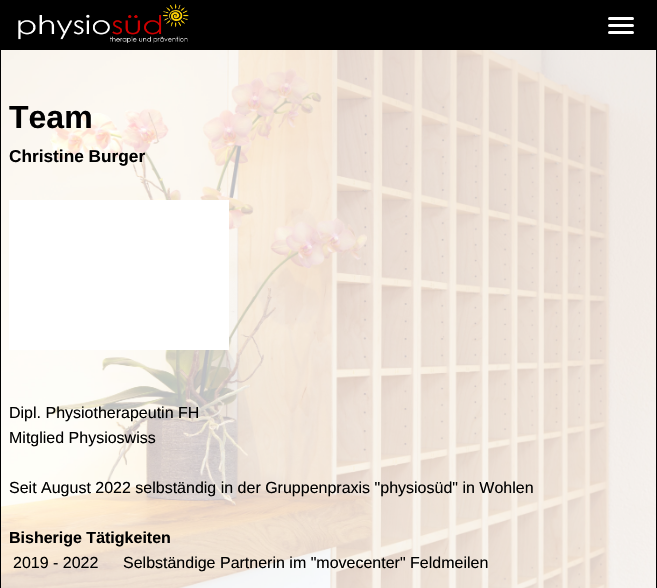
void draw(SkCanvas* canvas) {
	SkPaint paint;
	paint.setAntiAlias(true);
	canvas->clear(0xffffffff);
	paint.setColor(0xff000000);
	canvas->drawRect(SkRect::MakeXYWH(0, 0, 657, 50), paint);
	canvas->drawImageRect(SkImages::DeferredFromEncodedData(SkData::MakeFromFileName("img1.png")), SkRect::MakeXYWH(18, 4, 171, 40), SkSamplingOptions());
	paint.setColor(0xffffffff);
	canvas->drawRoundRect(SkRect::MakeXYWH(608, 24, 26, 3), 1.5, 1.5, paint);
	canvas->drawRoundRect(SkRect::MakeXYWH(608, 17, 26, 3), 1.5, 1.5, paint);
	canvas->drawRoundRect(SkRect::MakeXYWH(608, 31, 26, 3), 1.5, 1.5, paint);
	canvas->drawImageRect(SkImages::DeferredFromEncodedData(SkData::MakeFromFileName("img2.png")), SkRect::MakeXYWH(1, 50, 655, 538), SkSamplingOptions());
	paint.setColor(0xff000000);
	canvas->drawRect(SkRect::MakeXYWH(656, 50, 1, 538), paint);
	canvas->drawRect(SkRect::MakeXYWH(0, 50, 1, 538), paint);
	SkFont f1(fontMgr->matchFamilyStyle("Liberation Sans", SkFontStyle::Bold()), 32);
	f1.setSubpixel(true);
	canvas->drawString("Team", 9, 128, f1, paint);
	SkFont f2(fontMgr->matchFamilyStyle("Liberation Sans", SkFontStyle::Bold()), 17.25);
	f2.setSubpixel(true);
	canvas->drawString("Christine Burger", 9, 162, f2, paint);
	paint.setColor(0xffffffff);
	canvas->drawRect(SkRect::MakeXYWH(9, 200, 220, 150), paint);
	SkFont f3(fontMgr->matchFamilyStyle("Liberation Sans", SkFontStyle::Normal()), 16);
	f3.setSubpixel(true);
	paint.setColor(0xff000000);
	canvas->drawString("Dipl. Physiotherapeutin FH", 9, 418, f3, paint);
	canvas->drawString("Mitglied Physioswiss", 9, 443, f3, paint);
	canvas->drawString("Seit August 2022 selbständig in der Gruppenpraxis \"physiosüd\" in Wohlen", 9, 493, f3, paint);
	SkFont f4(fontMgr->matchFamilyStyle("Liberation Sans", SkFontStyle::Bold()), 16);
	f4.setSubpixel(true);
	canvas->drawString("Bisherige Tätigkeiten", 9, 543, f4, paint);
	canvas->drawString("2019 - 2022", 13, 568, f3, paint);
	canvas->drawString("Selbständige Partnerin im \"movecenter\" Feldmeilen", 123, 568, f3, paint);
}
